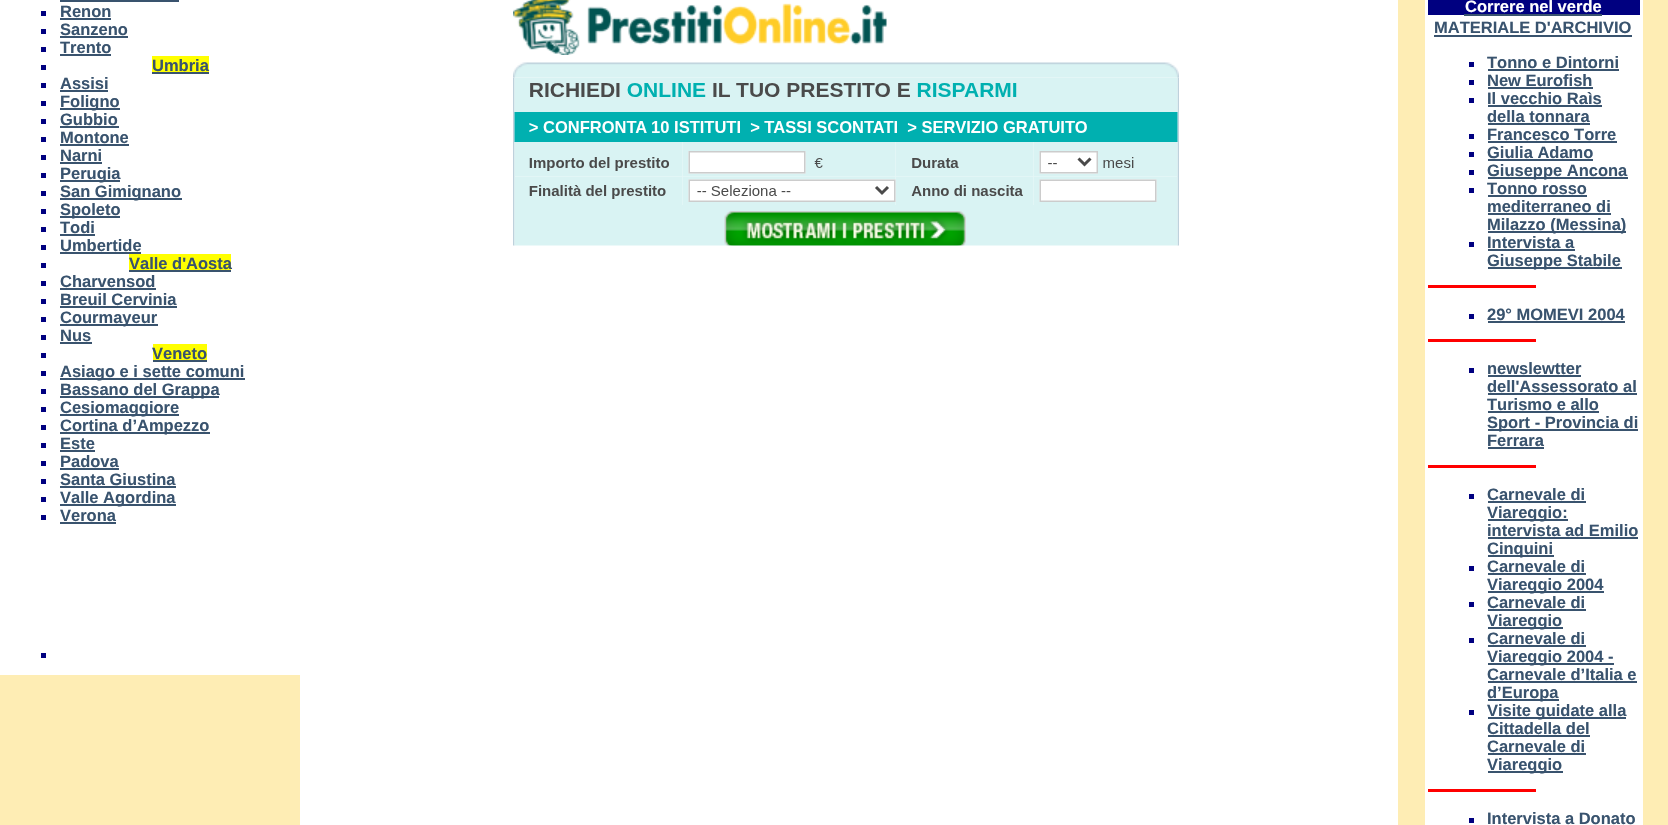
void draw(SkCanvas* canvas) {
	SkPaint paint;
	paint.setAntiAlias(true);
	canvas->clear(0xffffffff);
	paint.setColor(0xfffeedb4);
	canvas->drawRect(SkRect::MakeXYWH(0, 675, 300, 150), paint);
	paint.setColor(0xff39536e);
	canvas->drawRect(SkRect::MakeXYWH(60, 0, 119, 2), paint);
	paint.setColor(0xff000080);
	canvas->drawRect(SkRect::MakeXYWH(41, 11, 5, 5), paint);
	SkFont f1(fontMgr->matchFamilyStyle("Liberation Sans", SkFontStyle::Bold()), 16.5);
	f1.setSubpixel(true);
	paint.setColor(0xff39536e);
	canvas->drawString("Renon", 60, 17, f1, paint);
	canvas->drawRect(SkRect::MakeXYWH(60, 18, 51, 2), paint);
	paint.setColor(0xff000080);
	canvas->drawRect(SkRect::MakeXYWH(41, 29, 5, 5), paint);
	paint.setColor(0xff39536e);
	canvas->drawString("Sanzeno", 60, 35, f1, paint);
	canvas->drawRect(SkRect::MakeXYWH(60, 36, 68, 2), paint);
	paint.setColor(0xff000080);
	canvas->drawRect(SkRect::MakeXYWH(41, 47, 5, 5), paint);
	paint.setColor(0xff39536e);
	canvas->drawString("Trento", 60, 53, f1, paint);
	canvas->drawRect(SkRect::MakeXYWH(60, 54, 51, 2), paint);
	paint.setColor(0xff000080);
	canvas->drawRect(SkRect::MakeXYWH(41, 65, 5, 5), paint);
	paint.setColor(0xffffff00);
	canvas->drawRect(SkRect::MakeXYWH(152, 56, 57, 16), paint);
	paint.setColor(0xff39536e);
	canvas->drawString("Umbria", 152, 71, f1, paint);
	canvas->drawRect(SkRect::MakeXYWH(152, 72, 57, 2), paint);
	paint.setColor(0xff000080);
	canvas->drawRect(SkRect::MakeXYWH(41, 83, 5, 5), paint);
	paint.setColor(0xff39536e);
	canvas->drawString("Assisi", 60, 89, f1, paint);
	canvas->drawRect(SkRect::MakeXYWH(60, 90, 48, 2), paint);
	paint.setColor(0xff000080);
	canvas->drawRect(SkRect::MakeXYWH(41, 101, 5, 5), paint);
	paint.setColor(0xff39536e);
	canvas->drawRect(SkRect::MakeXYWH(60, 108, 60, 2), paint);
	canvas->drawString("Foligno", 60, 107, f1, paint);
	paint.setColor(0xff000080);
	canvas->drawRect(SkRect::MakeXYWH(41, 119, 5, 5), paint);
	paint.setColor(0xff39536e);
	canvas->drawString("Gubbio", 60, 125, f1, paint);
	canvas->drawRect(SkRect::MakeXYWH(60, 126, 59, 2), paint);
	paint.setColor(0xff000080);
	canvas->drawRect(SkRect::MakeXYWH(41, 137, 5, 5), paint);
	paint.setColor(0xff39536e);
	canvas->drawString("Montone", 60, 143, f1, paint);
	canvas->drawRect(SkRect::MakeXYWH(60, 144, 69, 2), paint);
	paint.setColor(0xff000080);
	canvas->drawRect(SkRect::MakeXYWH(41, 155, 5, 5), paint);
	paint.setColor(0xff39536e);
	canvas->drawString("Narni", 60, 161, f1, paint);
	canvas->drawRect(SkRect::MakeXYWH(60, 162, 42, 2), paint);
	paint.setColor(0xff000080);
	canvas->drawRect(SkRect::MakeXYWH(41, 173, 5, 5), paint);
	paint.setColor(0xff39536e);
	canvas->drawRect(SkRect::MakeXYWH(60, 180, 60, 2), paint);
	canvas->drawString("Perugia", 60, 179, f1, paint);
	paint.setColor(0xff000080);
	canvas->drawRect(SkRect::MakeXYWH(41, 191, 5, 5), paint);
	paint.setColor(0xff39536e);
	canvas->drawRect(SkRect::MakeXYWH(60, 198, 122, 2), paint);
	canvas->drawString("San Gimignano", 60, 197, f1, paint);
	paint.setColor(0xff000080);
	canvas->drawRect(SkRect::MakeXYWH(41, 209, 5, 5), paint);
	paint.setColor(0xff39536e);
	canvas->drawRect(SkRect::MakeXYWH(60, 216, 60, 2), paint);
	canvas->drawString("Spoleto", 60, 215, f1, paint);
	paint.setColor(0xff000080);
	canvas->drawRect(SkRect::MakeXYWH(41, 227, 5, 5), paint);
	paint.setColor(0xff39536e);
	canvas->drawString("Todi", 60, 233, f1, paint);
	canvas->drawRect(SkRect::MakeXYWH(60, 234, 35, 2), paint);
	paint.setColor(0xff000080);
	canvas->drawRect(SkRect::MakeXYWH(41, 245, 5, 5), paint);
	paint.setColor(0xff39536e);
	canvas->drawString("Umbertide", 60, 251, f1, paint);
	canvas->drawRect(SkRect::MakeXYWH(60, 252, 81, 2), paint);
	paint.setColor(0xff000080);
	canvas->drawRect(SkRect::MakeXYWH(41, 263, 5, 5), paint);
	paint.setColor(0xffffff00);
	canvas->drawRect(SkRect::MakeXYWH(129, 254, 102, 16), paint);
	paint.setColor(0xff39536e);
	canvas->drawString("Valle d'Aosta", 129, 269, f1, paint);
	canvas->drawRect(SkRect::MakeXYWH(129, 270, 102, 2), paint);
	paint.setColor(0xff000080);
	canvas->drawRect(SkRect::MakeXYWH(41, 281, 5, 5), paint);
	paint.setColor(0xff39536e);
	canvas->drawString("Charvensod", 60, 287, f1, paint);
	canvas->drawRect(SkRect::MakeXYWH(60, 288, 96, 2), paint);
	paint.setColor(0xff000080);
	canvas->drawRect(SkRect::MakeXYWH(41, 299, 5, 5), paint);
	paint.setColor(0xff39536e);
	canvas->drawString("Breuil Cervinia", 60, 305, f1, paint);
	canvas->drawRect(SkRect::MakeXYWH(60, 306, 117, 2), paint);
	paint.setColor(0xff000080);
	canvas->drawRect(SkRect::MakeXYWH(41, 317, 5, 5), paint);
	paint.setColor(0xff39536e);
	canvas->drawRect(SkRect::MakeXYWH(60, 324, 98, 2), paint);
	canvas->drawString("Courmayeur", 60, 323, f1, paint);
	paint.setColor(0xff000080);
	canvas->drawRect(SkRect::MakeXYWH(41, 335, 5, 5), paint);
	paint.setColor(0xff39536e);
	canvas->drawString("Nus", 60, 341, f1, paint);
	canvas->drawRect(SkRect::MakeXYWH(60, 342, 32, 2), paint);
	paint.setColor(0xff000080);
	canvas->drawRect(SkRect::MakeXYWH(41, 353, 5, 5), paint);
	paint.setColor(0xffffff00);
	canvas->drawRect(SkRect::MakeXYWH(153, 344, 54, 16), paint);
	paint.setColor(0xff39536e);
	canvas->drawString("Veneto", 152, 359, f1, paint);
	canvas->drawRect(SkRect::MakeXYWH(153, 360, 54, 2), paint);
	paint.setColor(0xff000080);
	canvas->drawRect(SkRect::MakeXYWH(41, 371, 5, 5), paint);
	paint.setColor(0xff39536e);
	canvas->drawRect(SkRect::MakeXYWH(60, 378, 185, 2), paint);
	canvas->drawString("Asiago e i sette comuni", 60, 377, f1, paint);
	paint.setColor(0xff000080);
	canvas->drawRect(SkRect::MakeXYWH(41, 389, 5, 5), paint);
	paint.setColor(0xff39536e);
	canvas->drawRect(SkRect::MakeXYWH(60, 396, 159, 2), paint);
	canvas->drawString("Bassano del Grappa", 60, 395, f1, paint);
	paint.setColor(0xff000080);
	canvas->drawRect(SkRect::MakeXYWH(41, 407, 5, 5), paint);
	paint.setColor(0xff39536e);
	canvas->drawRect(SkRect::MakeXYWH(60, 414, 119, 2), paint);
	canvas->drawString("Cesiomaggiore", 60, 413, f1, paint);
	paint.setColor(0xff000080);
	canvas->drawRect(SkRect::MakeXYWH(41, 425, 5, 5), paint);
	paint.setColor(0xff39536e);
	canvas->drawRect(SkRect::MakeXYWH(60, 432, 150, 2), paint);
	canvas->drawString("Cortina d’Ampezzo", 60, 431, f1, paint);
	paint.setColor(0xff000080);
	canvas->drawRect(SkRect::MakeXYWH(41, 443, 5, 5), paint);
	paint.setColor(0xff39536e);
	canvas->drawString("Este", 60, 449, f1, paint);
	canvas->drawRect(SkRect::MakeXYWH(60, 450, 35, 2), paint);
	paint.setColor(0xff000080);
	canvas->drawRect(SkRect::MakeXYWH(41, 461, 5, 5), paint);
	paint.setColor(0xff39536e);
	canvas->drawString("Padova", 60, 467, f1, paint);
	canvas->drawRect(SkRect::MakeXYWH(60, 468, 59, 2), paint);
	paint.setColor(0xff000080);
	canvas->drawRect(SkRect::MakeXYWH(41, 479, 5, 5), paint);
	paint.setColor(0xff39536e);
	canvas->drawString("Santa Giustina", 60, 485, f1, paint);
	canvas->drawRect(SkRect::MakeXYWH(60, 486, 116, 2), paint);
	paint.setColor(0xff000080);
	canvas->drawRect(SkRect::MakeXYWH(41, 497, 5, 5), paint);
	paint.setColor(0xff39536e);
	canvas->drawRect(SkRect::MakeXYWH(60, 504, 116, 2), paint);
	canvas->drawString("Valle Agordina", 60, 503, f1, paint);
	paint.setColor(0xff000080);
	canvas->drawRect(SkRect::MakeXYWH(41, 515, 5, 5), paint);
	paint.setColor(0xff39536e);
	canvas->drawString("Verona", 60, 521, f1, paint);
	canvas->drawRect(SkRect::MakeXYWH(60, 522, 56, 2), paint);
	paint.setColor(0xff000080);
	canvas->drawRect(SkRect::MakeXYWH(41, 653, 5, 5), paint);
	canvas->drawImageRect(SkImages::DeferredFromEncodedData(SkData::MakeFromFileName("img1.png")), SkRect::MakeXYWH(513, 0, 666, 246), SkSamplingOptions());
	paint.setColor(0xfffeedb4);
	canvas->drawRect(SkRect::MakeXYWH(1398, 0, 270, 825), paint);
	paint.setColor(0xffffffff);
	canvas->drawRect(SkRect::MakeXYWH(1425, 0, 218, 825), paint);
	paint.setColor(0xff000080);
	canvas->drawRect(SkRect::MakeXYWH(1428, 0, 212, 15), paint);
	paint.setColor(0xffffffff);
	canvas->drawString("Correre nel verde", 1465, 12, f1, paint);
	paint.setColor(0xff39536e);
	canvas->drawRect(SkRect::MakeXYWH(1464, 14, 138, 2), paint);
	canvas->drawString("MATERIALE D'ARCHIVIO", 1434, 33, f1, paint);
	canvas->drawRect(SkRect::MakeXYWH(1434, 35, 198, 2), paint);
	paint.setColor(0xff000080);
	canvas->drawRect(SkRect::MakeXYWH(1469, 62, 5, 5), paint);
	paint.setColor(0xff39536e);
	canvas->drawString("Tonno e Dintorni", 1487, 68, f1, paint);
	canvas->drawRect(SkRect::MakeXYWH(1488, 69, 131, 2), paint);
	paint.setColor(0xff000080);
	canvas->drawRect(SkRect::MakeXYWH(1469, 80, 5, 5), paint);
	paint.setColor(0xff39536e);
	canvas->drawString("New Eurofish", 1487, 86, f1, paint);
	canvas->drawRect(SkRect::MakeXYWH(1488, 87, 105, 2), paint);
	paint.setColor(0xff000080);
	canvas->drawRect(SkRect::MakeXYWH(1469, 98, 5, 5), paint);
	paint.setColor(0xff39536e);
	canvas->drawString("Il vecchio Raìs", 1487, 104, f1, paint);
	canvas->drawRect(SkRect::MakeXYWH(1488, 105, 114, 2), paint);
	canvas->drawString("della tonnara", 1487, 122, f1, paint);
	canvas->drawRect(SkRect::MakeXYWH(1488, 123, 102, 2), paint);
	paint.setColor(0xff000080);
	canvas->drawRect(SkRect::MakeXYWH(1469, 134, 5, 5), paint);
	paint.setColor(0xff39536e);
	canvas->drawString("Francesco Torre", 1487, 140, f1, paint);
	canvas->drawRect(SkRect::MakeXYWH(1488, 141, 129, 2), paint);
	paint.setColor(0xff000080);
	canvas->drawRect(SkRect::MakeXYWH(1469, 152, 5, 5), paint);
	paint.setColor(0xff39536e);
	canvas->drawString("Giulia Adamo", 1487, 158, f1, paint);
	canvas->drawRect(SkRect::MakeXYWH(1488, 159, 105, 2), paint);
	paint.setColor(0xff000080);
	canvas->drawRect(SkRect::MakeXYWH(1469, 170, 5, 5), paint);
	paint.setColor(0xff39536e);
	canvas->drawRect(SkRect::MakeXYWH(1488, 177, 140, 2), paint);
	canvas->drawString("Giuseppe Ancona", 1487, 176, f1, paint);
	paint.setColor(0xff000080);
	canvas->drawRect(SkRect::MakeXYWH(1469, 188, 5, 5), paint);
	paint.setColor(0xff39536e);
	canvas->drawString("Tonno rosso", 1487, 194, f1, paint);
	canvas->drawRect(SkRect::MakeXYWH(1488, 195, 99, 2), paint);
	canvas->drawString("mediterraneo di", 1487, 212, f1, paint);
	canvas->drawRect(SkRect::MakeXYWH(1488, 213, 123, 2), paint);
	canvas->drawRect(SkRect::MakeXYWH(1488, 231, 138, 2), paint);
	canvas->drawString("Milazzo (Messina)", 1487, 230, f1, paint);
	paint.setColor(0xff000080);
	canvas->drawRect(SkRect::MakeXYWH(1469, 242, 5, 5), paint);
	paint.setColor(0xff39536e);
	canvas->drawString("Intervista a", 1487, 248, f1, paint);
	canvas->drawRect(SkRect::MakeXYWH(1488, 249, 87, 2), paint);
	canvas->drawRect(SkRect::MakeXYWH(1488, 267, 134, 2), paint);
	canvas->drawString("Giuseppe Stabile", 1487, 266, f1, paint);
	paint.setColor(0xffff0000);
	canvas->drawRect(SkRect::MakeXYWH(1428, 285, 108, 3), paint);
	paint.setColor(0xff000080);
	canvas->drawRect(SkRect::MakeXYWH(1469, 314, 5, 5), paint);
	paint.setColor(0xff39536e);
	canvas->drawString("29° MOMEVI 2004", 1487, 320, f1, paint);
	canvas->drawRect(SkRect::MakeXYWH(1488, 321, 137, 2), paint);
	paint.setColor(0xffff0000);
	canvas->drawRect(SkRect::MakeXYWH(1428, 339, 108, 3), paint);
	paint.setColor(0xff000080);
	canvas->drawRect(SkRect::MakeXYWH(1469, 368, 5, 5), paint);
	paint.setColor(0xff39536e);
	canvas->drawString("newslewtter", 1487, 374, f1, paint);
	canvas->drawRect(SkRect::MakeXYWH(1488, 375, 93, 2), paint);
	canvas->drawString("dell'Assessorato al", 1487, 392, f1, paint);
	canvas->drawRect(SkRect::MakeXYWH(1488, 393, 149, 2), paint);
	canvas->drawString("Turismo e allo", 1487, 410, f1, paint);
	canvas->drawRect(SkRect::MakeXYWH(1488, 411, 111, 2), paint);
	canvas->drawRect(SkRect::MakeXYWH(1488, 429, 150, 2), paint);
	canvas->drawString("Sport - Provincia di", 1487, 428, f1, paint);
	canvas->drawString("Ferrara", 1487, 446, f1, paint);
	canvas->drawRect(SkRect::MakeXYWH(1488, 447, 56, 2), paint);
	paint.setColor(0xffff0000);
	canvas->drawRect(SkRect::MakeXYWH(1428, 465, 108, 3), paint);
	paint.setColor(0xff000080);
	canvas->drawRect(SkRect::MakeXYWH(1469, 494, 5, 5), paint);
	paint.setColor(0xff39536e);
	canvas->drawString("Carnevale di", 1487, 500, f1, paint);
	canvas->drawRect(SkRect::MakeXYWH(1488, 501, 98, 2), paint);
	canvas->drawRect(SkRect::MakeXYWH(1488, 519, 80, 2), paint);
	canvas->drawString("Viareggio:", 1487, 518, f1, paint);
	canvas->drawString("intervista ad Emilio", 1487, 536, f1, paint);
	canvas->drawRect(SkRect::MakeXYWH(1488, 537, 150, 2), paint);
	canvas->drawRect(SkRect::MakeXYWH(1488, 555, 66, 2), paint);
	canvas->drawString("Cinquini", 1487, 554, f1, paint);
	paint.setColor(0xff000080);
	canvas->drawRect(SkRect::MakeXYWH(1469, 566, 5, 5), paint);
	paint.setColor(0xff39536e);
	canvas->drawString("Carnevale di", 1487, 572, f1, paint);
	canvas->drawRect(SkRect::MakeXYWH(1488, 573, 98, 2), paint);
	canvas->drawRect(SkRect::MakeXYWH(1488, 591, 116, 2), paint);
	canvas->drawString("Viareggio 2004", 1487, 590, f1, paint);
	paint.setColor(0xff000080);
	canvas->drawRect(SkRect::MakeXYWH(1469, 602, 5, 5), paint);
	paint.setColor(0xff39536e);
	canvas->drawString("Carnevale di", 1487, 608, f1, paint);
	canvas->drawRect(SkRect::MakeXYWH(1488, 609, 98, 2), paint);
	canvas->drawRect(SkRect::MakeXYWH(1488, 627, 75, 2), paint);
	canvas->drawString("Viareggio", 1487, 626, f1, paint);
	paint.setColor(0xff000080);
	canvas->drawRect(SkRect::MakeXYWH(1469, 638, 5, 5), paint);
	paint.setColor(0xff39536e);
	canvas->drawString("Carnevale di", 1487, 644, f1, paint);
	canvas->drawRect(SkRect::MakeXYWH(1488, 645, 98, 2), paint);
	canvas->drawRect(SkRect::MakeXYWH(1488, 663, 126, 2), paint);
	canvas->drawString("Viareggio 2004 -", 1487, 662, f1, paint);
	canvas->drawString("Carnevale d’Italia e", 1487, 680, f1, paint);
	canvas->drawRect(SkRect::MakeXYWH(1488, 681, 149, 2), paint);
	canvas->drawRect(SkRect::MakeXYWH(1488, 699, 71, 2), paint);
	canvas->drawString("d’Europa", 1487, 698, f1, paint);
	paint.setColor(0xff000080);
	canvas->drawRect(SkRect::MakeXYWH(1469, 710, 5, 5), paint);
	paint.setColor(0xff39536e);
	canvas->drawRect(SkRect::MakeXYWH(1488, 717, 138, 2), paint);
	canvas->drawString("Visite guidate alla", 1487, 716, f1, paint);
	canvas->drawString("Cittadella del", 1487, 734, f1, paint);
	canvas->drawRect(SkRect::MakeXYWH(1488, 735, 102, 2), paint);
	canvas->drawString("Carnevale di", 1487, 752, f1, paint);
	canvas->drawRect(SkRect::MakeXYWH(1488, 753, 98, 2), paint);
	canvas->drawRect(SkRect::MakeXYWH(1488, 771, 75, 2), paint);
	canvas->drawString("Viareggio", 1487, 770, f1, paint);
	paint.setColor(0xffff0000);
	canvas->drawRect(SkRect::MakeXYWH(1428, 789, 108, 3), paint);
	paint.setColor(0xff000080);
	canvas->drawRect(SkRect::MakeXYWH(1469, 818, 5, 5), paint);
	paint.setColor(0xff39536e);
	canvas->drawString("Intervista a Donato", 1487, 824, f1, paint);
}
